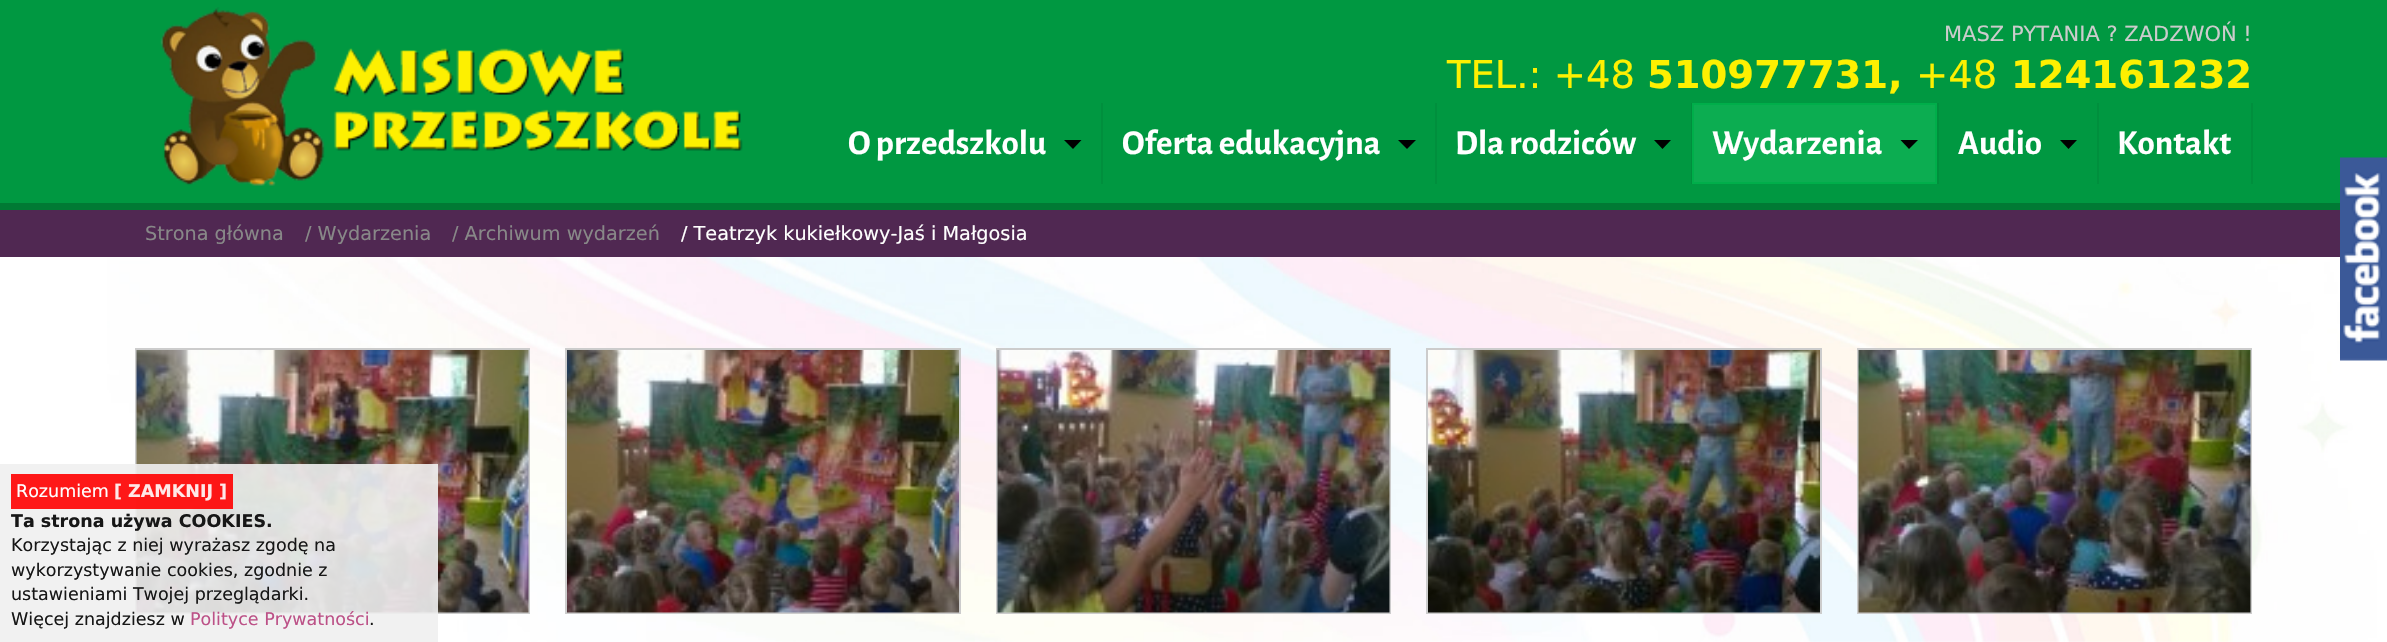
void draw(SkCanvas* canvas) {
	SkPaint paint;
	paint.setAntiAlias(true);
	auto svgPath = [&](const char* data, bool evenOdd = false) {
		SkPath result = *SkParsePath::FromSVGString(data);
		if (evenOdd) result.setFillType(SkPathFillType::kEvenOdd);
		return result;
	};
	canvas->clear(0xffffffff);
	paint.setColor(0xff009841);
	canvas->drawRect(SkRect::MakeXYWH(0, 0, 2387, 203), paint);
	paint.setColor(0xff007a34);
	canvas->drawRect(SkRect::MakeXYWH(0, 203, 2340, 7), paint);
	canvas->drawImageRect(SkImages::DeferredFromEncodedData(SkData::MakeFromFileName("img1.png")), SkRect::MakeXYWH(160, 7, 583, 179), SkSamplingOptions());
	SkFont f1(fontMgr->matchFamilyStyle("DejaVu Sans", SkFontStyle::Normal()), 21);
	f1.setSubpixel(true);
	paint.setColor(0xffcccccc);
	canvas->drawString("MASZ PYTANIA ? ZADZWOŃ !", 1944, 41, f1, paint);
	SkFont f2(fontMgr->matchFamilyStyle("DejaVu Sans", SkFontStyle::Normal()), 38.5);
	f2.setSubpixel(true);
	paint.setColor(0xfffdf001);
	canvas->drawString("TEL.: +48", 1447, 88, f2, paint);
	SkFont f3(fontMgr->matchFamilyStyle("DejaVu Sans", SkFontStyle::Bold()), 38.5);
	f3.setSubpixel(true);
	canvas->drawString("510977731,", 1647, 88, f3, paint);
	canvas->drawString("+48", 1916, 88, f2, paint);
	canvas->drawString("124161232", 2011, 88, f3, paint);
	paint.setColor(0xff008f3d);
	canvas->drawRect(SkRect::MakeXYWH(1101, 103, 2, 81), paint);
	SkFont f4(fontMgr->matchFamilyStyle("Alegreya Sans", SkFontStyle::Bold()), 35);
	f4.setSubpixel(true);
	paint.setColor(0xffffffff);
	canvas->drawString("O przedszkolu", 848, 154, f4, paint);
	paint.setColor(0xff000000);
	canvas->drawPath(svgPath("M1064 140H1081.5L1073 149Z"), paint);
	paint.setColor(0xff008f3d);
	canvas->drawRect(SkRect::MakeXYWH(1435, 103, 2, 81), paint);
	paint.setColor(0xffffffff);
	canvas->drawString("Oferta edukacyjna", 1122, 154, f4, paint);
	paint.setColor(0xff000000);
	canvas->drawPath(svgPath("M1398 140H1416L1407 149Z"), paint);
	paint.setColor(0xff008f3d);
	canvas->drawRect(SkRect::MakeXYWH(1691, 103, 1, 81), paint);
	paint.setColor(0xffffffff);
	canvas->drawString("Dla rodziców", 1455, 154, f4, paint);
	paint.setColor(0xff000000);
	canvas->drawPath(svgPath("M1654 140H1671L1662.5 149Z"), paint);
	paint.setColor(0xff008f3d);
	canvas->drawRect(SkRect::MakeXYWH(1937, 103, 2, 81), paint);
	paint.setColor(0xff0cad51);
	canvas->drawRect(SkRect::MakeXYWH(1693, 104, 243, 79), paint);
	paint.setStroke(true);
	paint.setStrokeWidth(2);
	paint.setColor(0xff00ae4a);
	canvas->drawRect(SkRect::MakeXYWH(1693, 104, 243, 79), paint);
	paint.setStroke(false);
	paint.setColor(0xffffffff);
	canvas->drawString("Wydarzenia", 1712, 154, f4, paint);
	paint.setColor(0xff000000);
	canvas->drawPath(svgPath("M1900.5 140H1918L1909 149Z"), paint);
	paint.setColor(0xff008f3d);
	canvas->drawRect(SkRect::MakeXYWH(2097, 103, 2, 81), paint);
	paint.setColor(0xffffffff);
	canvas->drawString("Audio", 1958, 154, f4, paint);
	paint.setColor(0xff000000);
	canvas->drawPath(svgPath("M2060 140H2077L2068.5 149Z"), paint);
	paint.setColor(0xff008f3d);
	canvas->drawRect(SkRect::MakeXYWH(2251, 103, 2, 81), paint);
	paint.setColor(0xffffffff);
	canvas->drawString("Kontakt", 2117, 154, f4, paint);
	paint.setColor(0xff502852);
	canvas->drawRect(SkRect::MakeXYWH(0, 210, 2340, 47), paint);
	SkFont f5(fontMgr->matchFamilyStyle("DejaVu Sans", SkFontStyle::Normal()), 19.25);
	f5.setSubpixel(true);
	paint.setColor(0xff888888);
	canvas->drawString("Strona główna", 145, 240, f5, paint);
	canvas->drawString("/ Wydarzenia", 305, 240, f5, paint);
	canvas->drawString("/ Archiwum wydarzeń", 452, 240, f5, paint);
	paint.setColor(0xffffffff);
	canvas->drawString("/ Teatrzyk kukiełkowy-Jaś i Małgosia", 681, 240, f5, paint);
	canvas->drawImageRect(SkImages::DeferredFromEncodedData(SkData::MakeFromFileName("img8.png")), SkRect::MakeXYWH(107, 257, 2270, 385), SkSamplingOptions());
	paint.setColor(0xffcccccc);
	canvas->drawRect(SkRect::MakeXYWH(135, 348, 395, 266), paint);
	canvas->drawImageRect(SkImages::DeferredFromEncodedData(SkData::MakeFromFileName("img2.png")), SkRect::MakeXYWH(136, 350, 393, 263), SkSamplingOptions());
	canvas->drawRect(SkRect::MakeXYWH(565, 348, 396, 266), paint);
	canvas->drawImageRect(SkImages::DeferredFromEncodedData(SkData::MakeFromFileName("img3.png")), SkRect::MakeXYWH(567, 350, 392, 263), SkSamplingOptions());
	canvas->drawRect(SkRect::MakeXYWH(996, 348, 395, 266), paint);
	canvas->drawImageRect(SkImages::DeferredFromEncodedData(SkData::MakeFromFileName("img4.png")), SkRect::MakeXYWH(997, 350, 393, 263), SkSamplingOptions());
	canvas->drawRect(SkRect::MakeXYWH(1426, 348, 396, 266), paint);
	canvas->drawImageRect(SkImages::DeferredFromEncodedData(SkData::MakeFromFileName("img5.png")), SkRect::MakeXYWH(1428, 350, 392, 263), SkSamplingOptions());
	canvas->drawRect(SkRect::MakeXYWH(1857, 348, 395, 266), paint);
	canvas->drawImageRect(SkImages::DeferredFromEncodedData(SkData::MakeFromFileName("img6.png")), SkRect::MakeXYWH(1858, 350, 393, 263), SkSamplingOptions());
	canvas->drawImageRect(SkImages::DeferredFromEncodedData(SkData::MakeFromFileName("img7.png")), SkRect::MakeXYWH(2340, 157, 47, 204), SkSamplingOptions());
	paint.setColor(0xe6efefef);
	canvas->drawRect(SkRect::MakeXYWH(0, 464, 438, 178), paint);
	paint.setColor(0xe6ff0000);
	canvas->drawRect(SkRect::MakeXYWH(11, 474, 222, 35), paint);
	SkFont f6(fontMgr->matchFamilyStyle("DejaVu Sans", SkFontStyle::Normal()), 17.5);
	f6.setSubpixel(true);
	paint.setColor(0xffffffff);
	canvas->drawString("Rozumiem", 16, 497, f6, paint);
	SkFont f7(fontMgr->matchFamilyStyle("DejaVu Sans", SkFontStyle::Bold()), 17.5);
	f7.setSubpixel(true);
	paint.setColor(0xffffe8e8);
	canvas->drawString("[ ZAMKNIJ ]", 114, 497, f7, paint);
	paint.setColor(0xff171717);
	canvas->drawString("Ta strona używa COOKIES.", 11, 527, f7, paint);
	canvas->drawString("Korzystając z niej wyrażasz zgodę na", 11, 551, f6, paint);
	canvas->drawString("wykorzystywanie cookies, zgodnie z", 11, 576, f6, paint);
	canvas->drawString("ustawieniami Twojej przeglądarki.", 11, 600, f6, paint);
	canvas->drawString("Więcej znajdziesz w", 11, 625, f6, paint);
	paint.setColor(0xffbc5187);
	canvas->drawString("Polityce Prywatności", 190, 625, f6, paint);
	paint.setColor(0xff171717);
	canvas->drawString(".", 369, 625, f6, paint);
}
